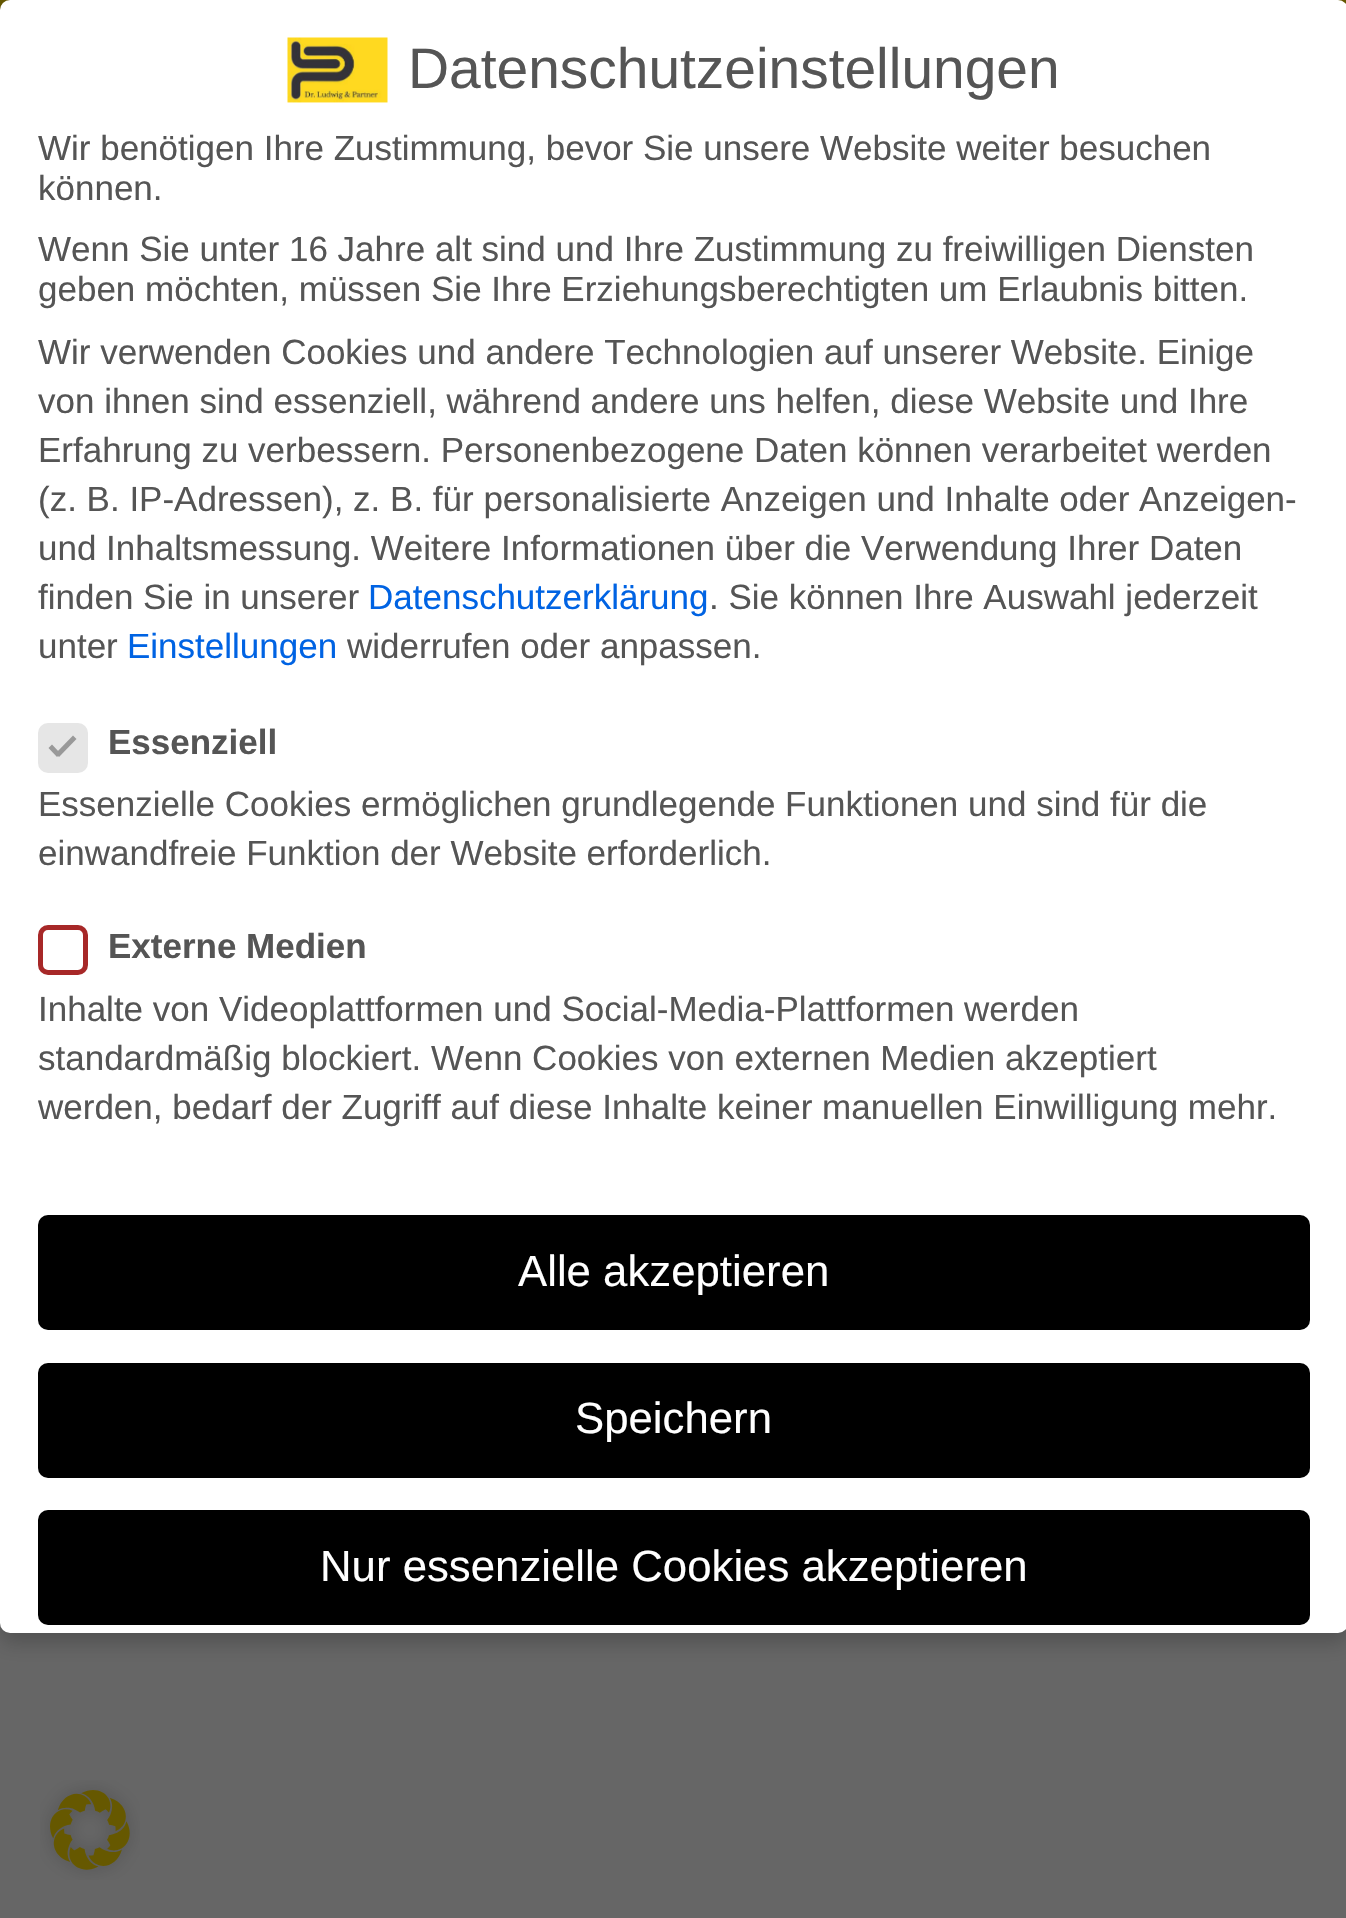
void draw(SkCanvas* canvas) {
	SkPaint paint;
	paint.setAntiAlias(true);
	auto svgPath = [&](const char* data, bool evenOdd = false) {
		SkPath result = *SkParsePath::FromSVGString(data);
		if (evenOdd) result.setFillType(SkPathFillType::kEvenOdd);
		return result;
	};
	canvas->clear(0xff666666);
	paint.setColor(0xff665800);
	canvas->drawRect(SkRect::MakeXYWH(0, 0, 1346, 10), paint);
	paint.setColor(0x33000000);
	paint.setMaskFilter(SkMaskFilter::MakeBlur(kNormal_SkBlurStyle, 10));
	canvas->drawRoundRect(SkRect::MakeXYWH(0, 10, 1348, 1633), 10, 10, paint);
	paint.setMaskFilter(nullptr);
	paint.setColor(0xffffffff);
	canvas->drawRoundRect(SkRect::MakeXYWH(0, 0, 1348, 1633), 10, 10, paint);
	canvas->drawImageRect(SkImages::DeferredFromEncodedData(SkData::MakeFromFileName("img1.png")), SkRect::MakeXYWH(287, 37, 101, 66), SkSamplingOptions());
	SkFont f1(fontMgr->matchFamilyStyle("Liberation Sans", SkFontStyle::Normal()), 56.9);
	f1.setSubpixel(true);
	paint.setColor(0xff555555);
	canvas->drawString("Datenschutzeinstellungen", 408, 88, f1, paint);
	SkFont f2(fontMgr->matchFamilyStyle("Liberation Sans", SkFontStyle::Normal()), 35);
	f2.setSubpixel(true);
	canvas->drawString("Wir benötigen Ihre Zustimmung, bevor Sie unsere Website weiter besuchen", 38, 160, f2, paint);
	canvas->drawString("können.", 38, 200, f2, paint);
	canvas->drawString("Wenn Sie unter 16 Jahre alt sind und Ihre Zustimmung zu freiwilligen Diensten", 38, 261, f2, paint);
	canvas->drawString("geben möchten, müssen Sie Ihre Erziehungsberechtigten um Erlaubnis bitten.", 38, 301, f2, paint);
	canvas->drawString("Wir verwenden Cookies und andere Technologien auf unserer Website. Einige", 38, 364, f2, paint);
	canvas->drawString("von ihnen sind essenziell, während andere uns helfen, diese Website und Ihre", 38, 413, f2, paint);
	canvas->drawString("Erfahrung zu verbessern. Personenbezogene Daten können verarbeitet werden", 38, 462, f2, paint);
	canvas->drawString("(z. B. IP-Adressen), z. B. für personalisierte Anzeigen und Inhalte oder Anzeigen-", 38, 511, f2, paint);
	canvas->drawString("und Inhaltsmessung. Weitere Informationen über die Verwendung Ihrer Daten", 38, 560, f2, paint);
	canvas->drawString("finden Sie in unserer", 38, 609, f2, paint);
	paint.setColor(0xff0063e3);
	canvas->drawString("Datenschutzerklärung", 368, 609, f2, paint);
	paint.setColor(0xff555555);
	canvas->drawString(". Sie können Ihre Auswahl jederzeit", 709, 609, f2, paint);
	canvas->drawString("unter", 38, 658, f2, paint);
	paint.setColor(0xff0063e3);
	canvas->drawString("Einstellungen", 127, 658, f2, paint);
	paint.setColor(0xff555555);
	canvas->drawString("widerrufen oder anpassen.", 347, 658, f2, paint);
	paint.setColor(0xffe6e6e6);
	canvas->drawRoundRect(SkRect::MakeXYWH(40.5, 725.5, 45, 45), 7.5, 7.5, paint);
	paint.setStroke(true);
	paint.setStrokeWidth(5);
	canvas->drawRoundRect(SkRect::MakeXYWH(40.5, 725.5, 45, 45), 7.5, 7.5, paint);
	paint.setStroke(false);
	paint.setColor(0xff999999);
	canvas->drawPath(svgPath("M73 735.5L76.5 739L59 757L55.5 753.5Z"), paint);
	canvas->drawPath(svgPath("M52 744.5L60.5 753.5L57 757L48.5 748Z"), paint);
	SkFont f3(fontMgr->matchFamilyStyle("Liberation Sans", SkFontStyle::Bold()), 35);
	f3.setSubpixel(true);
	paint.setColor(0xff555555);
	canvas->drawString("Essenziell", 108, 754, f3, paint);
	canvas->drawString("Essenzielle Cookies ermöglichen grundlegende Funktionen und sind für die", 38, 816, f2, paint);
	canvas->drawString("einwandfreie Funktion der Website erforderlich.", 38, 865, f2, paint);
	paint.setStroke(true);
	paint.setColor(0xffa72828);
	canvas->drawRoundRect(SkRect::MakeXYWH(40.5, 927.5, 45, 45), 7.5, 7.5, paint);
	paint.setStroke(false);
	paint.setColor(0xff555555);
	canvas->drawString("Externe Medien", 108, 958, f3, paint);
	canvas->drawString("Inhalte von Videoplattformen und Social-Media-Plattformen werden", 38, 1021, f2, paint);
	canvas->drawString("standardmäßig blockiert. Wenn Cookies von externen Medien akzeptiert", 38, 1070, f2, paint);
	canvas->drawString("werden, bedarf der Zugriff auf diese Inhalte keiner manuellen Einwilligung mehr.", 38, 1119, f2, paint);
	paint.setColor(0xff000000);
	canvas->drawRoundRect(SkRect::MakeXYWH(38, 1215, 1272, 115), 10, 10, paint);
	SkFont f4(fontMgr->matchFamilyStyle("Liberation Sans", SkFontStyle::Normal()), 43.75);
	f4.setSubpixel(true);
	paint.setColor(0xffffffff);
	canvas->drawString("Alle akzeptieren", 518, 1286, f4, paint);
	paint.setColor(0xff000000);
	canvas->drawRoundRect(SkRect::MakeXYWH(38, 1363, 1272, 115), 10, 10, paint);
	paint.setColor(0xffffffff);
	canvas->drawString("Speichern", 575, 1433, f4, paint);
	paint.setColor(0xff000000);
	canvas->drawRoundRect(SkRect::MakeXYWH(38, 1510, 1272, 115), 10, 10, paint);
	paint.setColor(0xffffffff);
	canvas->drawString("Nur essenzielle Cookies akzeptieren", 320, 1581, f4, paint);
	canvas->drawImageRect(SkImages::DeferredFromEncodedData(SkData::MakeFromFileName("img2.png")), SkRect::MakeXYWH(40, 1780, 100, 100), SkSamplingOptions());
}
